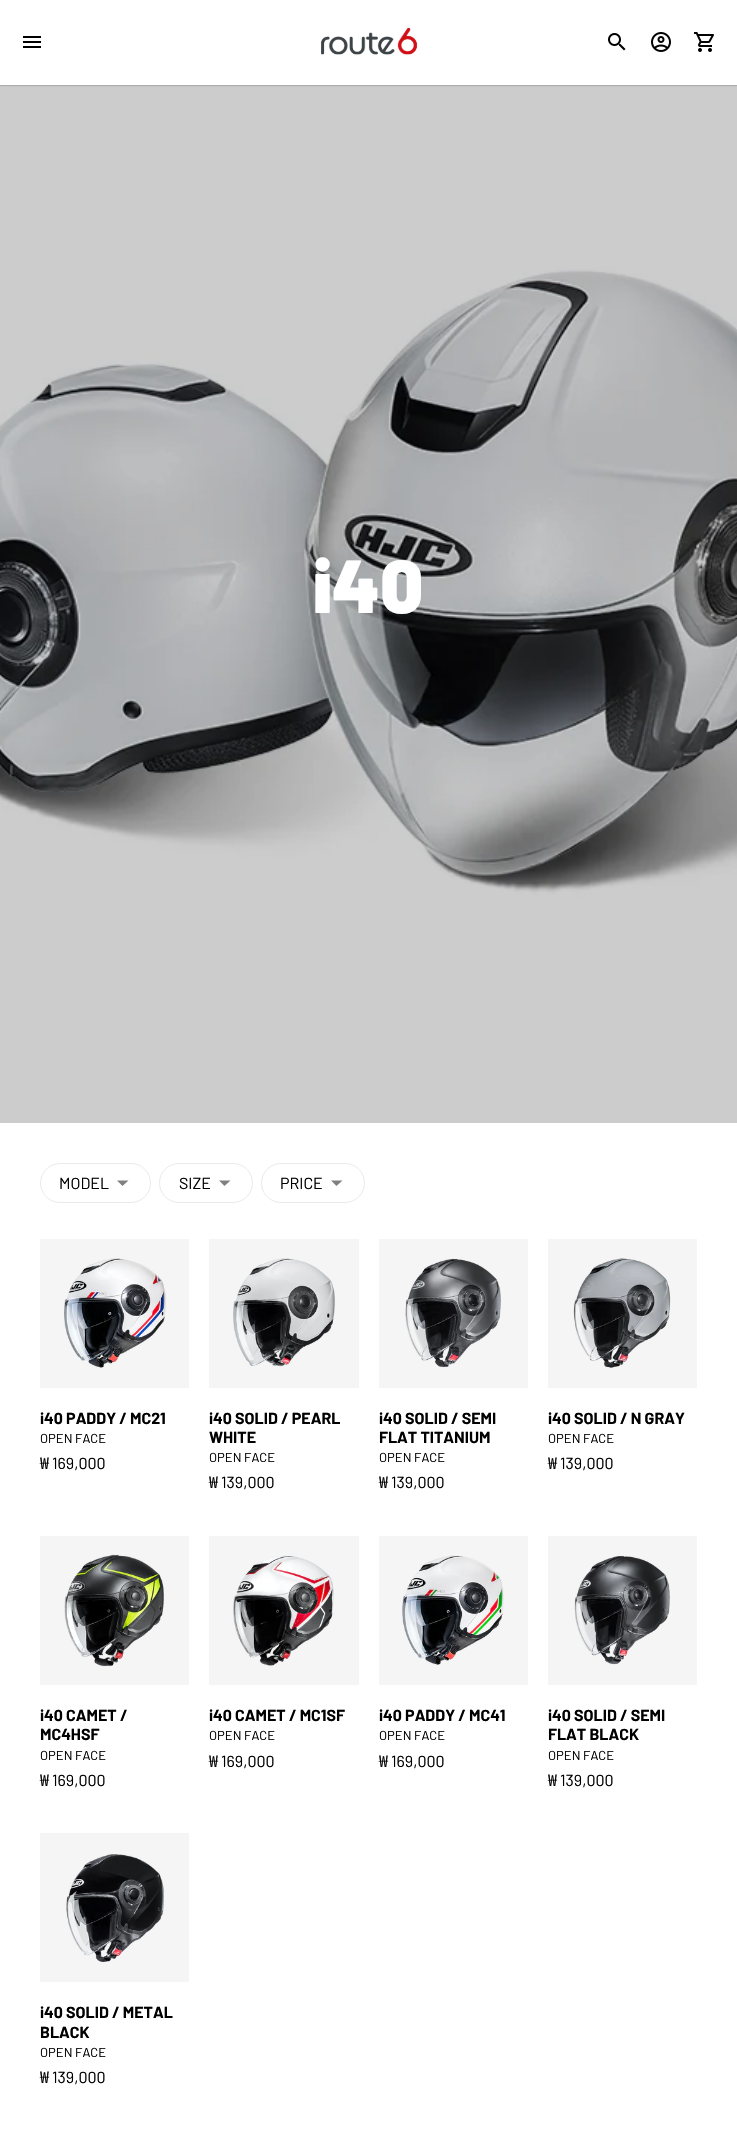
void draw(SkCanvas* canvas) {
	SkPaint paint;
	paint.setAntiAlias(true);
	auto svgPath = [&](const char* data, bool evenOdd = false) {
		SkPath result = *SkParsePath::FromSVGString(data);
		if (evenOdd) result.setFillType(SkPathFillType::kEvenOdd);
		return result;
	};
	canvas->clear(0xffffffff);
	canvas->drawImageRect(SkImages::DeferredFromEncodedData(SkData::MakeFromFileName("img6.png")), SkRect::MakeXYWH(0, 85, 737, 1038), SkSamplingOptions());
	paint.setColor(0x26000000);
	paint.setMaskFilter(SkMaskFilter::MakeBlur(kNormal_SkBlurStyle, 0.5));
	canvas->drawRect(SkRect::MakeXYWH(0, 1, 737, 85), paint);
	paint.setMaskFilter(nullptr);
	paint.setColor(0xffffffff);
	canvas->drawRect(SkRect::MakeXYWH(0, 0, 737, 85), paint);
	canvas->drawImageRect(SkImages::DeferredFromEncodedData(SkData::MakeFromFileName("img1.png")), SkRect::MakeXYWH(23, 36, 18, 12), SkSamplingOptions());
	canvas->drawImageRect(SkImages::DeferredFromEncodedData(SkData::MakeFromFileName("img2.png")), SkRect::MakeXYWH(321, 27, 97, 28), SkSamplingOptions());
	canvas->drawImageRect(SkImages::DeferredFromEncodedData(SkData::MakeFromFileName("img3.png")), SkRect::MakeXYWH(608, 33, 18, 18), SkSamplingOptions());
	canvas->drawImageRect(SkImages::DeferredFromEncodedData(SkData::MakeFromFileName("img4.png")), SkRect::MakeXYWH(651, 32, 20, 20), SkSamplingOptions());
	canvas->drawImageRect(SkImages::DeferredFromEncodedData(SkData::MakeFromFileName("img5.png")), SkRect::MakeXYWH(694, 32, 20, 20), SkSamplingOptions());
	SkFont f1(fontMgr->matchFamilyStyle("Barlow", SkFontStyle(900, SkFontStyle::kNormal_Width, SkFontStyle::kUpright_Slant)), 75);
	f1.setSubpixel(true);
	canvas->drawString("i40", 313, 613, f1, paint);
	paint.setStroke(true);
	paint.setStrokeWidth(1);
	paint.setColor(0xffeaeaea);
	canvas->drawRoundRect(SkRect::MakeXYWH(40.5, 1163.5, 110, 39), 19.5, 19.5, paint);
	SkFont f2(fontMgr->matchFamilyStyle("Barlow", SkFontStyle::Normal()), 16);
	f2.setSubpixel(true);
	paint.setStroke(false);
	paint.setColor(0xff000000);
	canvas->drawString("MODEL", 59, 1189, f2, paint);
	paint.setColor(0xff808080);
	canvas->drawPath(svgPath("M117 1180.5L122.5 1186L128.5 1180.5Z"), paint);
	paint.setStroke(true);
	paint.setColor(0xffeaeaea);
	canvas->drawRoundRect(SkRect::MakeXYWH(159.5, 1163.5, 93, 39), 19.5, 19.5, paint);
	paint.setStroke(false);
	paint.setColor(0xff000000);
	canvas->drawString("SIZE", 179, 1189, f2, paint);
	paint.setColor(0xff808080);
	canvas->drawPath(svgPath("M219 1180.5L224.5 1186L230.5 1180.5Z"), paint);
	paint.setStroke(true);
	paint.setColor(0xffeaeaea);
	canvas->drawRoundRect(SkRect::MakeXYWH(261.5, 1163.5, 103, 39), 19.5, 19.5, paint);
	paint.setStroke(false);
	paint.setColor(0xff000000);
	canvas->drawString("PRICE", 280, 1189, f2, paint);
	paint.setColor(0xff808080);
	canvas->drawPath(svgPath("M331 1180.5L336.5 1186L342.5 1180.5Z"), paint);
	paint.setColor(0xfff5f5f5);
	canvas->drawRect(SkRect::MakeXYWH(40, 1239, 149, 149), paint);
	canvas->drawImageRect(SkImages::DeferredFromEncodedData(SkData::MakeFromFileName("img7.png")), SkRect::MakeXYWH(64, 1258, 102, 110), SkSamplingOptions());
	SkFont f3(fontMgr->matchFamilyStyle("Barlow", SkFontStyle::Bold()), 16);
	f3.setSubpixel(true);
	paint.setColor(0xff000000);
	canvas->drawString("i40 PADDY / MC21", 40, 1424, f3, paint);
	SkFont f4(fontMgr->matchFamilyStyle("Barlow", SkFontStyle::Normal()), 13);
	f4.setSubpixel(true);
	canvas->drawString("OPEN FACE", 40, 1443, f4, paint);
	SkFont f5(fontMgr->matchFamilyStyle("Noto Sans KR", SkFontStyle::Normal()), 16);
	f5.setSubpixel(true);
	canvas->drawString("₩", 40, 1469, f5, paint);
	canvas->drawString("169,000", 52, 1469, f2, paint);
	paint.setColor(0xfff5f5f5);
	canvas->drawRect(SkRect::MakeXYWH(209, 1239, 150, 149), paint);
	canvas->drawImageRect(SkImages::DeferredFromEncodedData(SkData::MakeFromFileName("img8.png")), SkRect::MakeXYWH(233, 1258, 102, 109), SkSamplingOptions());
	paint.setColor(0xff000000);
	canvas->drawString("i40 SOLID / PEARL", 209, 1424, f3, paint);
	canvas->drawString("WHITE", 209, 1443, f3, paint);
	canvas->drawString("OPEN FACE", 209, 1462, f4, paint);
	canvas->drawString("₩", 209, 1488, f5, paint);
	canvas->drawString("139,000", 221, 1488, f2, paint);
	paint.setColor(0xfff5f5f5);
	canvas->drawRect(SkRect::MakeXYWH(379, 1239, 149, 149), paint);
	canvas->drawImageRect(SkImages::DeferredFromEncodedData(SkData::MakeFromFileName("img9.png")), SkRect::MakeXYWH(405, 1258, 96, 110), SkSamplingOptions());
	paint.setColor(0xff000000);
	canvas->drawString("i40 SOLID / SEMI", 379, 1424, f3, paint);
	canvas->drawString("FLAT TITANIUM", 379, 1443, f3, paint);
	canvas->drawString("OPEN FACE", 379, 1462, f4, paint);
	canvas->drawString("₩", 379, 1488, f5, paint);
	canvas->drawString("139,000", 391, 1488, f2, paint);
	paint.setColor(0xfff5f5f5);
	canvas->drawRect(SkRect::MakeXYWH(548, 1239, 149, 149), paint);
	canvas->drawImageRect(SkImages::DeferredFromEncodedData(SkData::MakeFromFileName("img10.png")), SkRect::MakeXYWH(573, 1258, 98, 110), SkSamplingOptions());
	paint.setColor(0xff000000);
	canvas->drawString("i40 SOLID / N GRAY", 548, 1424, f3, paint);
	canvas->drawString("OPEN FACE", 548, 1443, f4, paint);
	canvas->drawString("₩", 548, 1469, f5, paint);
	canvas->drawString("139,000", 560, 1469, f2, paint);
	paint.setColor(0xfff5f5f5);
	canvas->drawRect(SkRect::MakeXYWH(40, 1536, 149, 149), paint);
	canvas->drawImageRect(SkImages::DeferredFromEncodedData(SkData::MakeFromFileName("img11.png")), SkRect::MakeXYWH(64, 1554, 100, 113), SkSamplingOptions());
	paint.setColor(0xff000000);
	canvas->drawString("i40 CAMET /", 40, 1721, f3, paint);
	canvas->drawString("MC4HSF", 40, 1740, f3, paint);
	canvas->drawString("OPEN FACE", 40, 1760, f4, paint);
	canvas->drawString("₩", 40, 1786, f5, paint);
	canvas->drawString("169,000", 52, 1786, f2, paint);
	paint.setColor(0xfff5f5f5);
	canvas->drawRect(SkRect::MakeXYWH(209, 1536, 150, 149), paint);
	canvas->drawImageRect(SkImages::DeferredFromEncodedData(SkData::MakeFromFileName("img12.png")), SkRect::MakeXYWH(233, 1555, 101, 111), SkSamplingOptions());
	paint.setColor(0xff000000);
	canvas->drawString("i40 CAMET / MC1SF", 209, 1721, f3, paint);
	canvas->drawString("OPEN FACE", 209, 1740, f4, paint);
	canvas->drawString("₩", 209, 1767, f5, paint);
	canvas->drawString("169,000", 221, 1767, f2, paint);
	paint.setColor(0xfff5f5f5);
	canvas->drawRect(SkRect::MakeXYWH(379, 1536, 149, 149), paint);
	canvas->drawImageRect(SkImages::DeferredFromEncodedData(SkData::MakeFromFileName("img13.png")), SkRect::MakeXYWH(402, 1555, 102, 110), SkSamplingOptions());
	paint.setColor(0xff000000);
	canvas->drawString("i40 PADDY / MC41", 379, 1721, f3, paint);
	canvas->drawString("OPEN FACE", 379, 1740, f4, paint);
	canvas->drawString("₩", 379, 1767, f5, paint);
	canvas->drawString("169,000", 391, 1767, f2, paint);
	paint.setColor(0xfff5f5f5);
	canvas->drawRect(SkRect::MakeXYWH(548, 1536, 149, 149), paint);
	canvas->drawImageRect(SkImages::DeferredFromEncodedData(SkData::MakeFromFileName("img14.png")), SkRect::MakeXYWH(574, 1556, 96, 109), SkSamplingOptions());
	paint.setColor(0xff000000);
	canvas->drawString("i40 SOLID / SEMI", 548, 1721, f3, paint);
	canvas->drawString("FLAT BLACK", 548, 1740, f3, paint);
	canvas->drawString("OPEN FACE", 548, 1760, f4, paint);
	canvas->drawString("₩", 548, 1786, f5, paint);
	canvas->drawString("139,000", 560, 1786, f2, paint);
	paint.setColor(0xfff5f5f5);
	canvas->drawRect(SkRect::MakeXYWH(40, 1833, 149, 149), paint);
	canvas->drawImageRect(SkImages::DeferredFromEncodedData(SkData::MakeFromFileName("img15.png")), SkRect::MakeXYWH(66, 1854, 98, 108), SkSamplingOptions());
	paint.setColor(0xff000000);
	canvas->drawString("i40 SOLID / METAL", 40, 2018, f3, paint);
	canvas->drawString("BLACK", 40, 2038, f3, paint);
	canvas->drawString("OPEN FACE", 40, 2057, f4, paint);
	canvas->drawString("₩", 40, 2083, f5, paint);
	canvas->drawString("139,000", 52, 2083, f2, paint);
}
